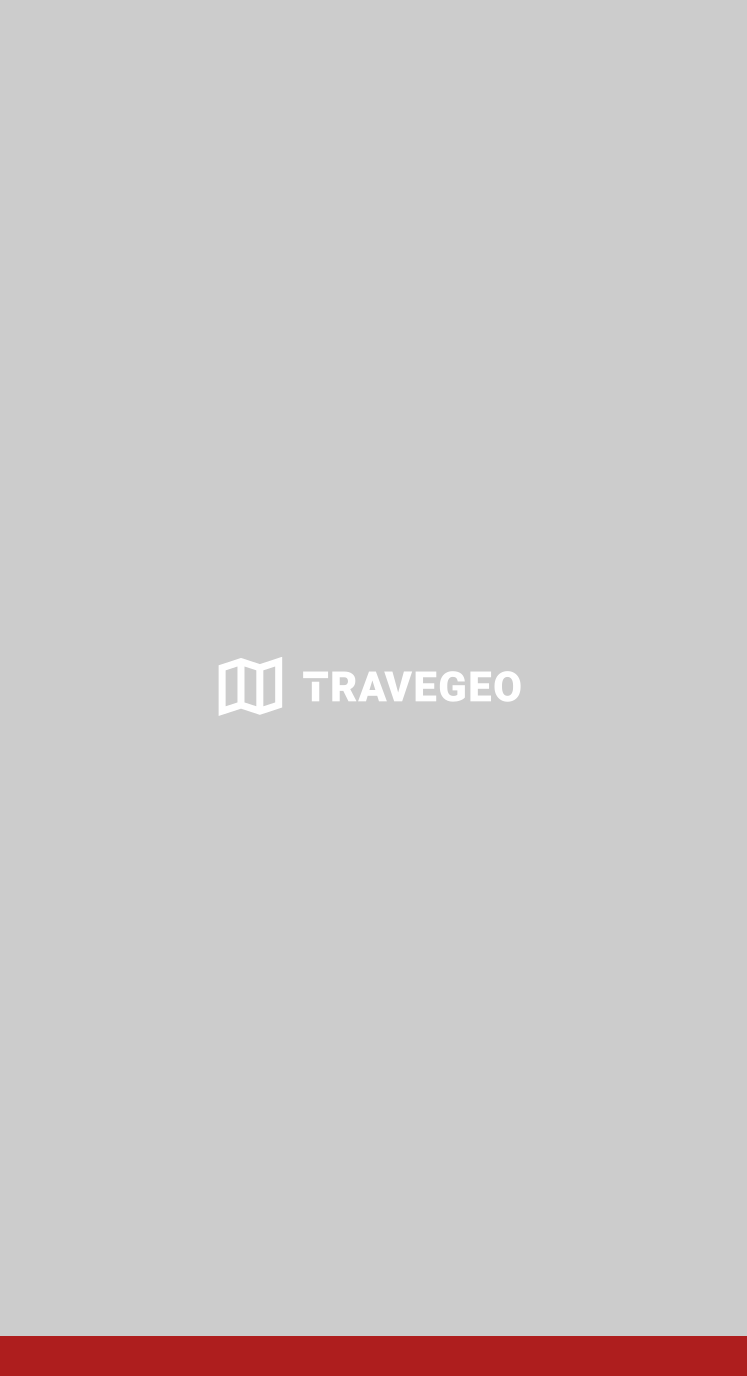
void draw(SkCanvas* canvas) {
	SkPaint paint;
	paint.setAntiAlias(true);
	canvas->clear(0xffcccccc);
	canvas->drawImageRect(SkImages::DeferredFromEncodedData(SkData::MakeFromFileName("img1.png")), SkRect::MakeXYWH(218, 657, 303, 59), SkSamplingOptions());
	paint.setColor(0xffae1e1e);
	canvas->drawRect(SkRect::MakeXYWH(0, 1336, 747, 40), paint);
}
